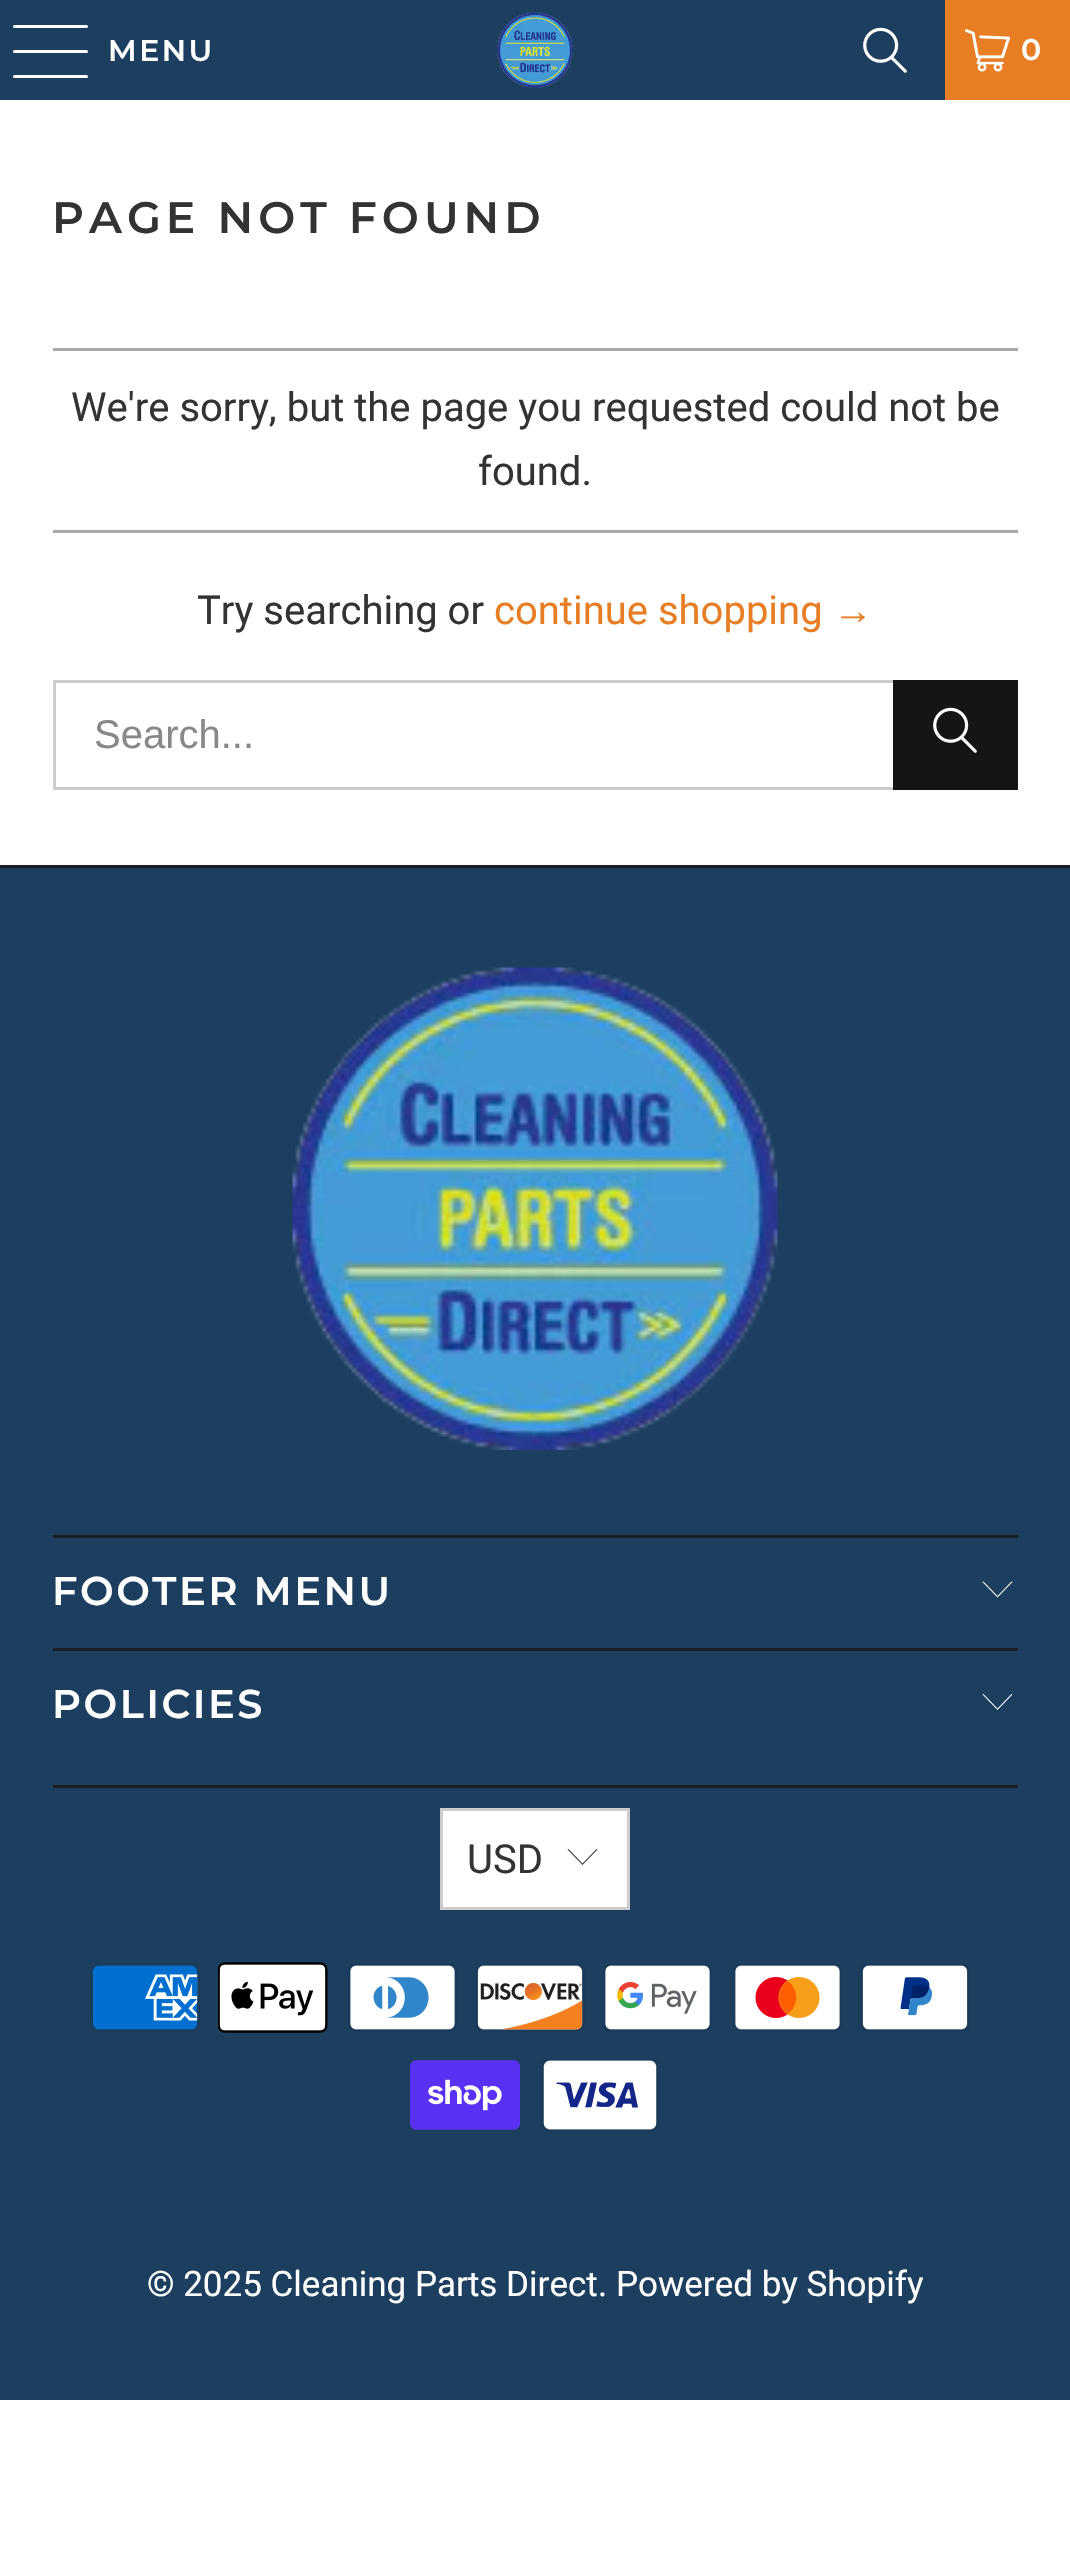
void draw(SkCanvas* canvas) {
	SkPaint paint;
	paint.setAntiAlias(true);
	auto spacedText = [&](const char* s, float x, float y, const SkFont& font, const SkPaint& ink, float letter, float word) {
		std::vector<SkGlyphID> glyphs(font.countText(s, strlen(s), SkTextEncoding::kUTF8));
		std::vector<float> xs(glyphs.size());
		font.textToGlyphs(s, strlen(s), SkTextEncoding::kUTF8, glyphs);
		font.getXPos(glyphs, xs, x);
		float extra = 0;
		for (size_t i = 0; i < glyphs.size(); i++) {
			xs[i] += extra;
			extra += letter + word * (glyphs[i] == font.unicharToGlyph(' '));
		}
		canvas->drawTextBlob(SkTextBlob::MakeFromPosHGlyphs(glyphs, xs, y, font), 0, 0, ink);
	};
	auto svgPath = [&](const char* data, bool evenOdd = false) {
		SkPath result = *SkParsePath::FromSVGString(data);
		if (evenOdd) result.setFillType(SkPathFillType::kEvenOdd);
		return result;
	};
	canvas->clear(0xffffffff);
	paint.setColor(0xff1c3f60);
	canvas->drawRect(SkRect::MakeXYWH(0, 0, 945, 100), paint);
	paint.setColor(0xffffffff);
	canvas->drawRoundRect(SkRect::MakeXYWH(13, 25, 75, 3), 1.5, 1.5, paint);
	canvas->drawRoundRect(SkRect::MakeXYWH(13, 50, 75, 3), 1.5, 1.5, paint);
	canvas->drawRoundRect(SkRect::MakeXYWH(13, 75, 75, 3), 1.5, 1.5, paint);
	SkFont f1(fontMgr->matchFamilyStyle("Montserrat", SkFontStyle(600, SkFontStyle::kNormal_Width, SkFontStyle::kUpright_Slant)), 30);
	f1.setSubpixel(true);
	spacedText("MENU", 108, 61, f1, paint, 2.5, 0);
	canvas->drawImageRect(SkImages::DeferredFromEncodedData(SkData::MakeFromFileName("img1.png")), SkRect::MakeXYWH(497, 12, 76, 76), SkSamplingOptions());
	canvas->drawImageRect(SkImages::DeferredFromEncodedData(SkData::MakeFromFileName("img2.png")), SkRect::MakeXYWH(863, 27, 44, 46), SkSamplingOptions());
	paint.setColor(0xffe77e23);
	canvas->drawRect(SkRect::MakeXYWH(945, 0, 125, 100), paint);
	canvas->drawImageRect(SkImages::DeferredFromEncodedData(SkData::MakeFromFileName("img3.png")), SkRect::MakeXYWH(965, 29, 45, 43), SkSamplingOptions());
	paint.setColor(0xffffffff);
	spacedText("0", 1021, 60, f1, paint, 2.5, 0);
	SkFont f2(fontMgr->matchFamilyStyle("Montserrat", SkFontStyle(600, SkFontStyle::kNormal_Width, SkFontStyle::kUpright_Slant)), 44);
	f2.setSubpixel(true);
	paint.setColor(0xff333333);
	spacedText("PAGE NOT FOUND", 52, 233, f2, paint, 5, 0);
	paint.setColor(0xffaaaaaa);
	canvas->drawRect(SkRect::MakeXYWH(53, 348, 965, 3), paint);
	canvas->drawRect(SkRect::MakeXYWH(53, 530, 965, 3), paint);
	SkFont f3(fontMgr->matchFamilyStyle("Roboto", SkFontStyle::Normal()), 40);
	f3.setSubpixel(true);
	paint.setColor(0xff333333);
	canvas->drawString("We're sorry, but the page you requested could not be", 71, 421, f3, paint);
	canvas->drawString("found.", 478, 485, f3, paint);
	canvas->drawString("Try searching or", 197, 624, f3, paint);
	paint.setColor(0xffe77e23);
	canvas->drawString("continue shopping", 494, 624, f3, paint);
	SkFont f4(fontMgr->matchFamilyStyle("Liberation Sans", SkFontStyle::Normal()), 40);
	f4.setSubpixel(true);
	canvas->drawString("→", 833, 624, f4, paint);
	paint.setStroke(true);
	paint.setStrokeWidth(3);
	paint.setColor(0xffcccccc);
	canvas->drawRect(SkRect::MakeXYWH(54.5, 681.5, 962, 107), paint);
	paint.setStroke(false);
	paint.setColor(0xff888888);
	canvas->drawString("Search...", 94, 748, f4, paint);
	paint.setColor(0xff151515);
	canvas->drawRect(SkRect::MakeXYWH(893, 680, 125, 110), paint);
	canvas->drawImageRect(SkImages::DeferredFromEncodedData(SkData::MakeFromFileName("img4.png")), SkRect::MakeXYWH(933, 707, 44, 46), SkSamplingOptions());
	paint.setColor(0xff1c3f60);
	canvas->drawRect(SkRect::MakeXYWH(0, 868, 1070, 1532), paint);
	paint.setColor(0xff1b1f23);
	canvas->drawRect(SkRect::MakeXYWH(0, 865, 1070, 3), paint);
	canvas->drawImageRect(SkImages::DeferredFromEncodedData(SkData::MakeFromFileName("img5.png")), SkRect::MakeXYWH(292, 967, 486, 483), SkSamplingOptions());
	canvas->drawRect(SkRect::MakeXYWH(53, 1535, 965, 3), paint);
	SkFont f5(fontMgr->matchFamilyStyle("Montserrat", SkFontStyle(600, SkFontStyle::kNormal_Width, SkFontStyle::kUpright_Slant)), 40);
	f5.setSubpixel(true);
	paint.setColor(0xffffffff);
	spacedText("FOOTER MENU", 52, 1605, f5, paint, 2.5, 0);
	canvas->drawPath(svgPath("M997.5 1597.5L982.5 1582L983.5 1581.5L997.5 1596L1011.5 1581.5L1012.5 1582Z"), paint);
	paint.setColor(0xff1b1f23);
	canvas->drawRect(SkRect::MakeXYWH(53, 1648, 965, 3), paint);
	paint.setColor(0xffffffff);
	spacedText("POLICIES", 52, 1718, f5, paint, 2.5, 0);
	canvas->drawPath(svgPath("M997.5 1710L982.5 1694.5L983.5 1694L997.5 1708.5L1011.5 1694L1012.5 1694.5Z"), paint);
	paint.setColor(0xff1b1f23);
	canvas->drawRect(SkRect::MakeXYWH(53, 1785, 965, 3), paint);
	paint.setColor(0xffffffff);
	canvas->drawRect(SkRect::MakeXYWH(441.5, 1809.5, 187, 99), paint);
	paint.setStroke(true);
	paint.setColor(0xffcccccc);
	canvas->drawRect(SkRect::MakeXYWH(441.5, 1809.5, 187, 99), paint);
	paint.setStroke(false);
	paint.setColor(0xff333333);
	canvas->drawString("USD", 467, 1873, f3, paint);
	canvas->drawPath(svgPath("M582.5 1865L567.5 1849.5L568.5 1849L582.5 1863.5L596.5 1849L597.5 1849.5Z"), paint);
	canvas->drawImageRect(SkImages::DeferredFromEncodedData(SkData::MakeFromFileName("img6.png")), SkRect::MakeXYWH(90, 1963, 110, 69), SkSamplingOptions());
	canvas->drawImageRect(SkImages::DeferredFromEncodedData(SkData::MakeFromFileName("img7.png")), SkRect::MakeXYWH(218, 1962, 110, 71), SkSamplingOptions());
	canvas->drawImageRect(SkImages::DeferredFromEncodedData(SkData::MakeFromFileName("img8.png")), SkRect::MakeXYWH(348, 1963, 109, 69), SkSamplingOptions());
	canvas->drawImageRect(SkImages::DeferredFromEncodedData(SkData::MakeFromFileName("img9.png")), SkRect::MakeXYWH(475, 1963, 110, 69), SkSamplingOptions());
	canvas->drawImageRect(SkImages::DeferredFromEncodedData(SkData::MakeFromFileName("img10.png")), SkRect::MakeXYWH(603, 1963, 109, 69), SkSamplingOptions());
	canvas->drawImageRect(SkImages::DeferredFromEncodedData(SkData::MakeFromFileName("img11.png")), SkRect::MakeXYWH(733, 1963, 109, 69), SkSamplingOptions());
	canvas->drawImageRect(SkImages::DeferredFromEncodedData(SkData::MakeFromFileName("img12.png")), SkRect::MakeXYWH(860, 1963, 110, 69), SkSamplingOptions());
	canvas->drawImageRect(SkImages::DeferredFromEncodedData(SkData::MakeFromFileName("img13.png")), SkRect::MakeXYWH(410, 2060, 110, 70), SkSamplingOptions());
	canvas->drawImageRect(SkImages::DeferredFromEncodedData(SkData::MakeFromFileName("img14.png")), SkRect::MakeXYWH(541, 2058, 118, 74), SkSamplingOptions());
	SkFont f6(fontMgr->matchFamilyStyle("Roboto", SkFontStyle::Normal()), 35);
	f6.setSubpixel(true);
	paint.setColor(0xffffffff);
	canvas->drawString("© 2025 Cleaning Parts Direct", 147, 2296, f6, paint);
	canvas->drawString(". Powered by Shopify", 598, 2296, f6, paint);
}
